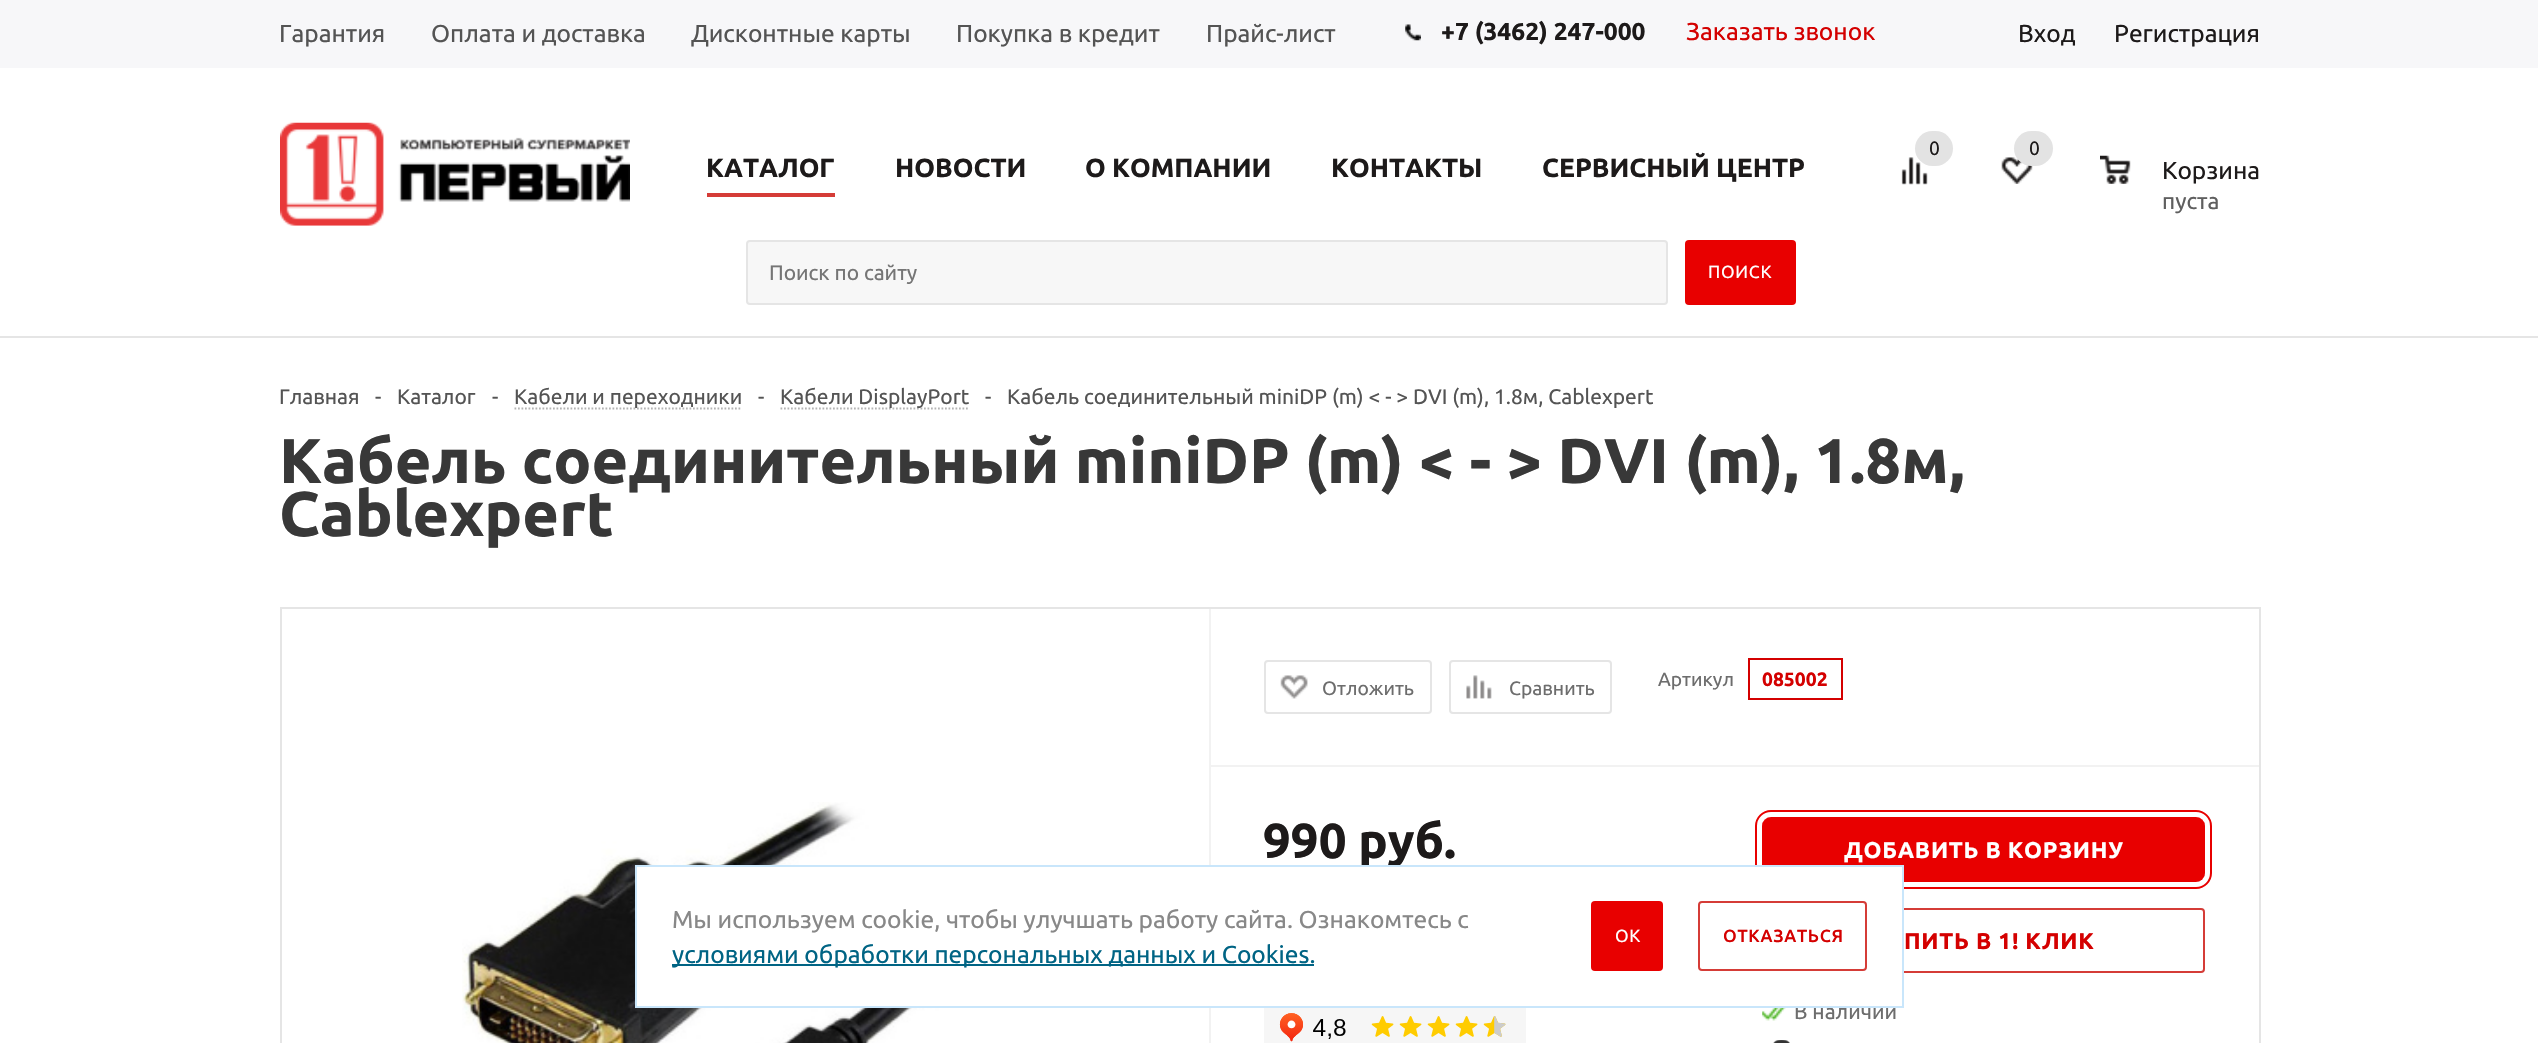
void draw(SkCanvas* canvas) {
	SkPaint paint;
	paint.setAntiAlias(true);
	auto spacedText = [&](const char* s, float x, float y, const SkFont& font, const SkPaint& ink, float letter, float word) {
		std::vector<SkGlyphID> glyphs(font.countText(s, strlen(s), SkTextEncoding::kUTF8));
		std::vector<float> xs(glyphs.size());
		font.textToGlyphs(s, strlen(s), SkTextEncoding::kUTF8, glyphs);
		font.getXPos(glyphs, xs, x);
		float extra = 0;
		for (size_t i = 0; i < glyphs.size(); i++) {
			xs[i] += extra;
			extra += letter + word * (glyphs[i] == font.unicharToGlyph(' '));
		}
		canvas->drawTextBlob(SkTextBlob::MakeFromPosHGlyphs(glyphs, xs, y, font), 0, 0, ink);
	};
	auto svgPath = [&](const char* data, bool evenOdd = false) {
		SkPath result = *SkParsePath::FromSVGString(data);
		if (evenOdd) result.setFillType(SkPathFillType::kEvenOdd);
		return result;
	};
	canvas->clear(0xffffffff);
	paint.setColor(0xfff7f7f9);
	canvas->drawRect(SkRect::MakeXYWH(0, 0, 2538, 68), paint);
	SkFont f1(fontMgr->matchFamilyStyle("Ubuntu", SkFontStyle::Normal()), 24.5);
	f1.setSubpixel(true);
	paint.setColor(0xff545454);
	canvas->drawString("Гарантия", 279, 42, f1, paint);
	canvas->drawString("Оплата и доставка", 431, 42, f1, paint);
	canvas->drawString("Дисконтные карты", 691, 42, f1, paint);
	canvas->drawString("Покупка в кредит", 956, 42, f1, paint);
	canvas->drawString("Прайс-лист", 1206, 42, f1, paint);
	canvas->drawImageRect(SkImages::DeferredFromEncodedData(SkData::MakeFromFileName("img1.png")), SkRect::MakeXYWH(1405, 24, 16, 17), SkSamplingOptions());
	SkFont f2(fontMgr->matchFamilyStyle("Ubuntu", SkFontStyle::Bold()), 24.5);
	f2.setSubpixel(true);
	paint.setColor(0xff1d1a1a);
	canvas->drawString("+7 (3462) 247-000", 1441, 40, f2, paint);
	paint.setColor(0xffd40000);
	canvas->drawString("Заказать звонок", 1686, 40, f1, paint);
	paint.setColor(0xff1d1a1a);
	canvas->drawString("Вход", 2018, 42, f1, paint);
	canvas->drawString("Регистрация", 2114, 42, f1, paint);
	paint.setColor(0xffe5e5e5);
	canvas->drawRect(SkRect::MakeXYWH(0, 336, 2538, 2), paint);
	canvas->drawImageRect(SkImages::DeferredFromEncodedData(SkData::MakeFromFileName("img2.png")), SkRect::MakeXYWH(280, 122, 350, 104), SkSamplingOptions());
	paint.setColor(0xffd53c37);
	canvas->drawRect(SkRect::MakeXYWH(707, 193, 128, 4), paint);
	SkFont f3(fontMgr->matchFamilyStyle("Ubuntu", SkFontStyle::Bold()), 26.25);
	f3.setSubpixel(true);
	paint.setColor(0xff1d1a1a);
	canvas->drawString("КАТАЛОГ", 706, 177, f3, paint);
	canvas->drawString("НОВОСТИ", 895, 177, f3, paint);
	canvas->drawString("О КОМПАНИИ", 1085, 177, f3, paint);
	canvas->drawString("КОНТАКТЫ", 1331, 177, f3, paint);
	canvas->drawString("СЕРВИСНЫЙ ЦЕНТР", 1542, 177, f3, paint);
	canvas->drawImageRect(SkImages::DeferredFromEncodedData(SkData::MakeFromFileName("img3.png")), SkRect::MakeXYWH(1901, 157, 27, 28), SkSamplingOptions());
	paint.setColor(0xffe3e3e3);
	canvas->drawRoundRect(SkRect::MakeXYWH(1915, 131, 38, 35), 17.5, 17.5, paint);
	SkFont f4(fontMgr->matchFamilyStyle("Ubuntu", SkFontStyle::Normal()), 19.25);
	f4.setSubpixel(true);
	paint.setColor(0xff1d1a1a);
	canvas->drawString("0", 1929, 155, f4, paint);
	canvas->drawImageRect(SkImages::DeferredFromEncodedData(SkData::MakeFromFileName("img4.png")), SkRect::MakeXYWH(2001, 157, 32, 27), SkSamplingOptions());
	paint.setColor(0xffe3e3e3);
	canvas->drawRoundRect(SkRect::MakeXYWH(2014, 131, 39, 35), 17.5, 17.5, paint);
	paint.setColor(0xff1d1a1a);
	canvas->drawString("0", 2029, 155, f4, paint);
	canvas->drawImageRect(SkImages::DeferredFromEncodedData(SkData::MakeFromFileName("img5.png")), SkRect::MakeXYWH(2100, 155, 31, 29), SkSamplingOptions());
	canvas->drawString("Корзина", 2162, 179, f1, paint);
	SkFont f5(fontMgr->matchFamilyStyle("Ubuntu", SkFontStyle::Normal()), 22.75);
	f5.setSubpixel(true);
	paint.setColor(0xff5f5f5f);
	canvas->drawString("пуста", 2162, 209, f5, paint);
	paint.setColor(0xfff7f7f7);
	canvas->drawRoundRect(SkRect::MakeXYWH(747, 241, 920, 63), 3, 3, paint);
	paint.setStroke(true);
	paint.setStrokeWidth(2);
	paint.setColor(0xffe5e5e5);
	canvas->drawRoundRect(SkRect::MakeXYWH(747, 241, 920, 63), 3, 3, paint);
	SkFont f6(fontMgr->matchFamilyStyle("Ubuntu", SkFontStyle::Normal()), 21);
	f6.setSubpixel(true);
	paint.setStroke(false);
	paint.setColor(0xff757575);
	canvas->drawString("Поиск по сайту", 769, 280, f6, paint);
	paint.setColor(0xffe80000);
	canvas->drawRoundRect(SkRect::MakeXYWH(1685, 240, 111, 65), 4, 4, paint);
	SkFont f7(fontMgr->matchFamilyStyle("Ubuntu", SkFontStyle::Normal()), 17.5);
	f7.setSubpixel(true);
	paint.setColor(0xffffffff);
	spacedText("ПОИСК", 1708, 278, f7, paint, 0.75, 0);
	paint.setColor(0xff545454);
	canvas->drawString("Главная", 279, 404, f6, paint);
	canvas->drawString("-", 375, 404, f6, paint);
	canvas->drawString("Каталог", 397, 404, f6, paint);
	canvas->drawString("-", 492, 404, f6, paint);
	paint.setStroke(true);
	paint.setStrokeWidth(1.8);
	paint.setColor(0xffb4b4b4);
	paint.setPathEffect(SkDashPathEffect::Make({{1.75f, 1.75f}}, 0));
	canvas->drawPath(svgPath("M514.5 408.5H742"), paint);
	paint.setPathEffect(nullptr);
	paint.setStroke(false);
	paint.setColor(0xff545454);
	canvas->drawString("Кабели и переходники", 514, 404, f6, paint);
	canvas->drawString("-", 758, 404, f6, paint);
	paint.setStroke(true);
	paint.setColor(0xffb4b4b4);
	paint.setPathEffect(SkDashPathEffect::Make({{1.75f, 1.75f}}, 0));
	canvas->drawPath(svgPath("M780.5 408.5H969.5"), paint);
	paint.setPathEffect(nullptr);
	paint.setStroke(false);
	paint.setColor(0xff545454);
	canvas->drawString("Кабели DisplayPort", 780, 404, f6, paint);
	canvas->drawString("-", 985, 404, f6, paint);
	canvas->drawString("Кабель соединительный miniDP (m) < - > DVI (m), 1.8м, Cablexpert", 1007, 404, f6, paint);
	SkFont f8(fontMgr->matchFamilyStyle("Ubuntu", SkFontStyle::Bold()), 63);
	f8.setSubpixel(true);
	paint.setColor(0xff383838);
	canvas->drawString("Кабель соединительный miniDP (m) < - > DVI (m), 1.8м,", 279, 483, f8, paint);
	canvas->drawString("Cablexpert", 279, 536, f8, paint);
	paint.setStroke(true);
	paint.setStrokeWidth(2);
	paint.setColor(0xffe5e5e5);
	canvas->drawRect(SkRect::MakeXYWH(281, 608, 1979, 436), paint);
	canvas->drawImageRect(SkImages::DeferredFromEncodedData(SkData::MakeFromFileName("img6.png")), SkRect::MakeXYWH(462, 802, 580, 241), SkSamplingOptions());
	paint.setStroke(false);
	paint.setColor(0xfff2f2f2);
	canvas->drawRect(SkRect::MakeXYWH(1209, 609, 2, 434), paint);
	canvas->drawRect(SkRect::MakeXYWH(1211, 765, 1048, 2), paint);
	paint.setStroke(true);
	paint.setColor(0xffe5e5e5);
	canvas->drawRoundRect(SkRect::MakeXYWH(1265, 661, 166, 52), 3, 3, paint);
	canvas->drawImageRect(SkImages::DeferredFromEncodedData(SkData::MakeFromFileName("img7.png")), SkRect::MakeXYWH(1280, 675, 28, 24), SkSamplingOptions());
	paint.setStroke(false);
	paint.setColor(0xff6d6d6d);
	canvas->drawString("Отложить", 1322, 695, f4, paint);
	paint.setStroke(true);
	paint.setColor(0xffe5e5e5);
	canvas->drawRoundRect(SkRect::MakeXYWH(1450, 661, 161, 52), 3, 3, paint);
	canvas->drawImageRect(SkImages::DeferredFromEncodedData(SkData::MakeFromFileName("img8.png")), SkRect::MakeXYWH(1466, 675, 26, 24), SkSamplingOptions());
	paint.setStroke(false);
	paint.setColor(0xff6d6d6d);
	canvas->drawString("Сравнить", 1509, 695, f4, paint);
	canvas->drawString("Артикул", 1658, 686, f4, paint);
	paint.setStroke(true);
	paint.setColor(0xffd40000);
	canvas->drawRect(SkRect::MakeXYWH(1749, 659, 93, 40), paint);
	SkFont f9(fontMgr->matchFamilyStyle("Ubuntu", SkFontStyle::Bold()), 19.25);
	f9.setSubpixel(true);
	paint.setStroke(false);
	canvas->drawString("085002", 1762, 686, f9, paint);
	SkFont f10(fontMgr->matchFamilyStyle("Ubuntu", SkFontStyle::Bold()), 49);
	f10.setSubpixel(true);
	paint.setColor(0xff1d1a1a);
	canvas->drawString("990 руб.", 1263, 858, f10, paint);
	canvas->drawImageRect(SkImages::DeferredFromEncodedData(SkData::MakeFromFileName("img9.png")), SkRect::MakeXYWH(1264, 1008, 262, 35), SkSamplingOptions());
	paint.setStroke(true);
	paint.setStrokeWidth(7);
	paint.setColor(0xffe80000);
	canvas->drawRoundRect(SkRect::MakeXYWH(1758.5, 813.5, 450, 72), 12.5, 12.5, paint);
	paint.setStrokeWidth(5);
	paint.setColor(0xffffffff);
	canvas->drawRoundRect(SkRect::MakeXYWH(1759.5, 814.5, 448, 70), 11.5, 11.5, paint);
	paint.setStroke(false);
	paint.setColor(0xffe80000);
	canvas->drawRoundRect(SkRect::MakeXYWH(1762, 817, 443, 65), 9, 9, paint);
	SkFont f11(fontMgr->matchFamilyStyle("Ubuntu", SkFontStyle::Bold()), 22.75);
	f11.setSubpixel(true);
	paint.setColor(0xffffffff);
	spacedText("ДОБАВИТЬ В КОРЗИНУ", 1844, 858, f11, paint, 0.75, 0);
	paint.setStroke(true);
	paint.setStrokeWidth(2);
	paint.setColor(0xffd53c37);
	canvas->drawRoundRect(SkRect::MakeXYWH(1763, 909, 441, 63), 3, 3, paint);
	paint.setStroke(false);
	paint.setColor(0xffd40000);
	spacedText("ПИТЬ В 1! КЛИК", 1904, 949, f11, paint, 0.75, 0);
	canvas->drawImageRect(SkImages::DeferredFromEncodedData(SkData::MakeFromFileName("img10.png")), SkRect::MakeXYWH(1762, 1008, 24, 13), SkSamplingOptions());
	paint.setColor(0xff6d6d6d);
	canvas->drawString("В наличии", 1794, 1019, f6, paint);
	canvas->drawImageRect(SkImages::DeferredFromEncodedData(SkData::MakeFromFileName("img11.png")), SkRect::MakeXYWH(1773, 1040, 17, 3), SkSamplingOptions());
	paint.setColor(0xffffffff);
	canvas->drawRect(SkRect::MakeXYWH(636, 866, 1267, 141), paint);
	paint.setStroke(true);
	paint.setColor(0xffc9e6fb);
	canvas->drawRect(SkRect::MakeXYWH(636, 866, 1267, 141), paint);
	paint.setStroke(false);
	paint.setColor(0xff888888);
	canvas->drawString("Мы используем cookie, чтобы улучшать работу сайта. Ознакомтесь с", 672, 928, f1, paint);
	paint.setColor(0xff006484);
	canvas->drawRect(SkRect::MakeXYWH(672, 964, 642, 2), paint);
	canvas->drawString("условиями обработки персональных данных и Cookies.", 672, 963, f1, paint);
	paint.setColor(0xffe80000);
	canvas->drawRoundRect(SkRect::MakeXYWH(1591, 901, 72, 70), 4, 4, paint);
	paint.setColor(0xffffffff);
	spacedText("ОК", 1615, 942, f7, paint, 0.75, 0);
	paint.setStroke(true);
	paint.setColor(0xffd53c37);
	canvas->drawRoundRect(SkRect::MakeXYWH(1699, 902, 167, 68), 3, 3, paint);
	SkFont f12(fontMgr->matchFamilyStyle("Ubuntu", SkFontStyle(500, SkFontStyle::kNormal_Width, SkFontStyle::kUpright_Slant)), 17.5);
	f12.setSubpixel(true);
	paint.setStroke(false);
	paint.setColor(0xffd40000);
	spacedText("ОТКАЗАТЬСЯ", 1723, 942, f12, paint, 0.75, 0);
}
